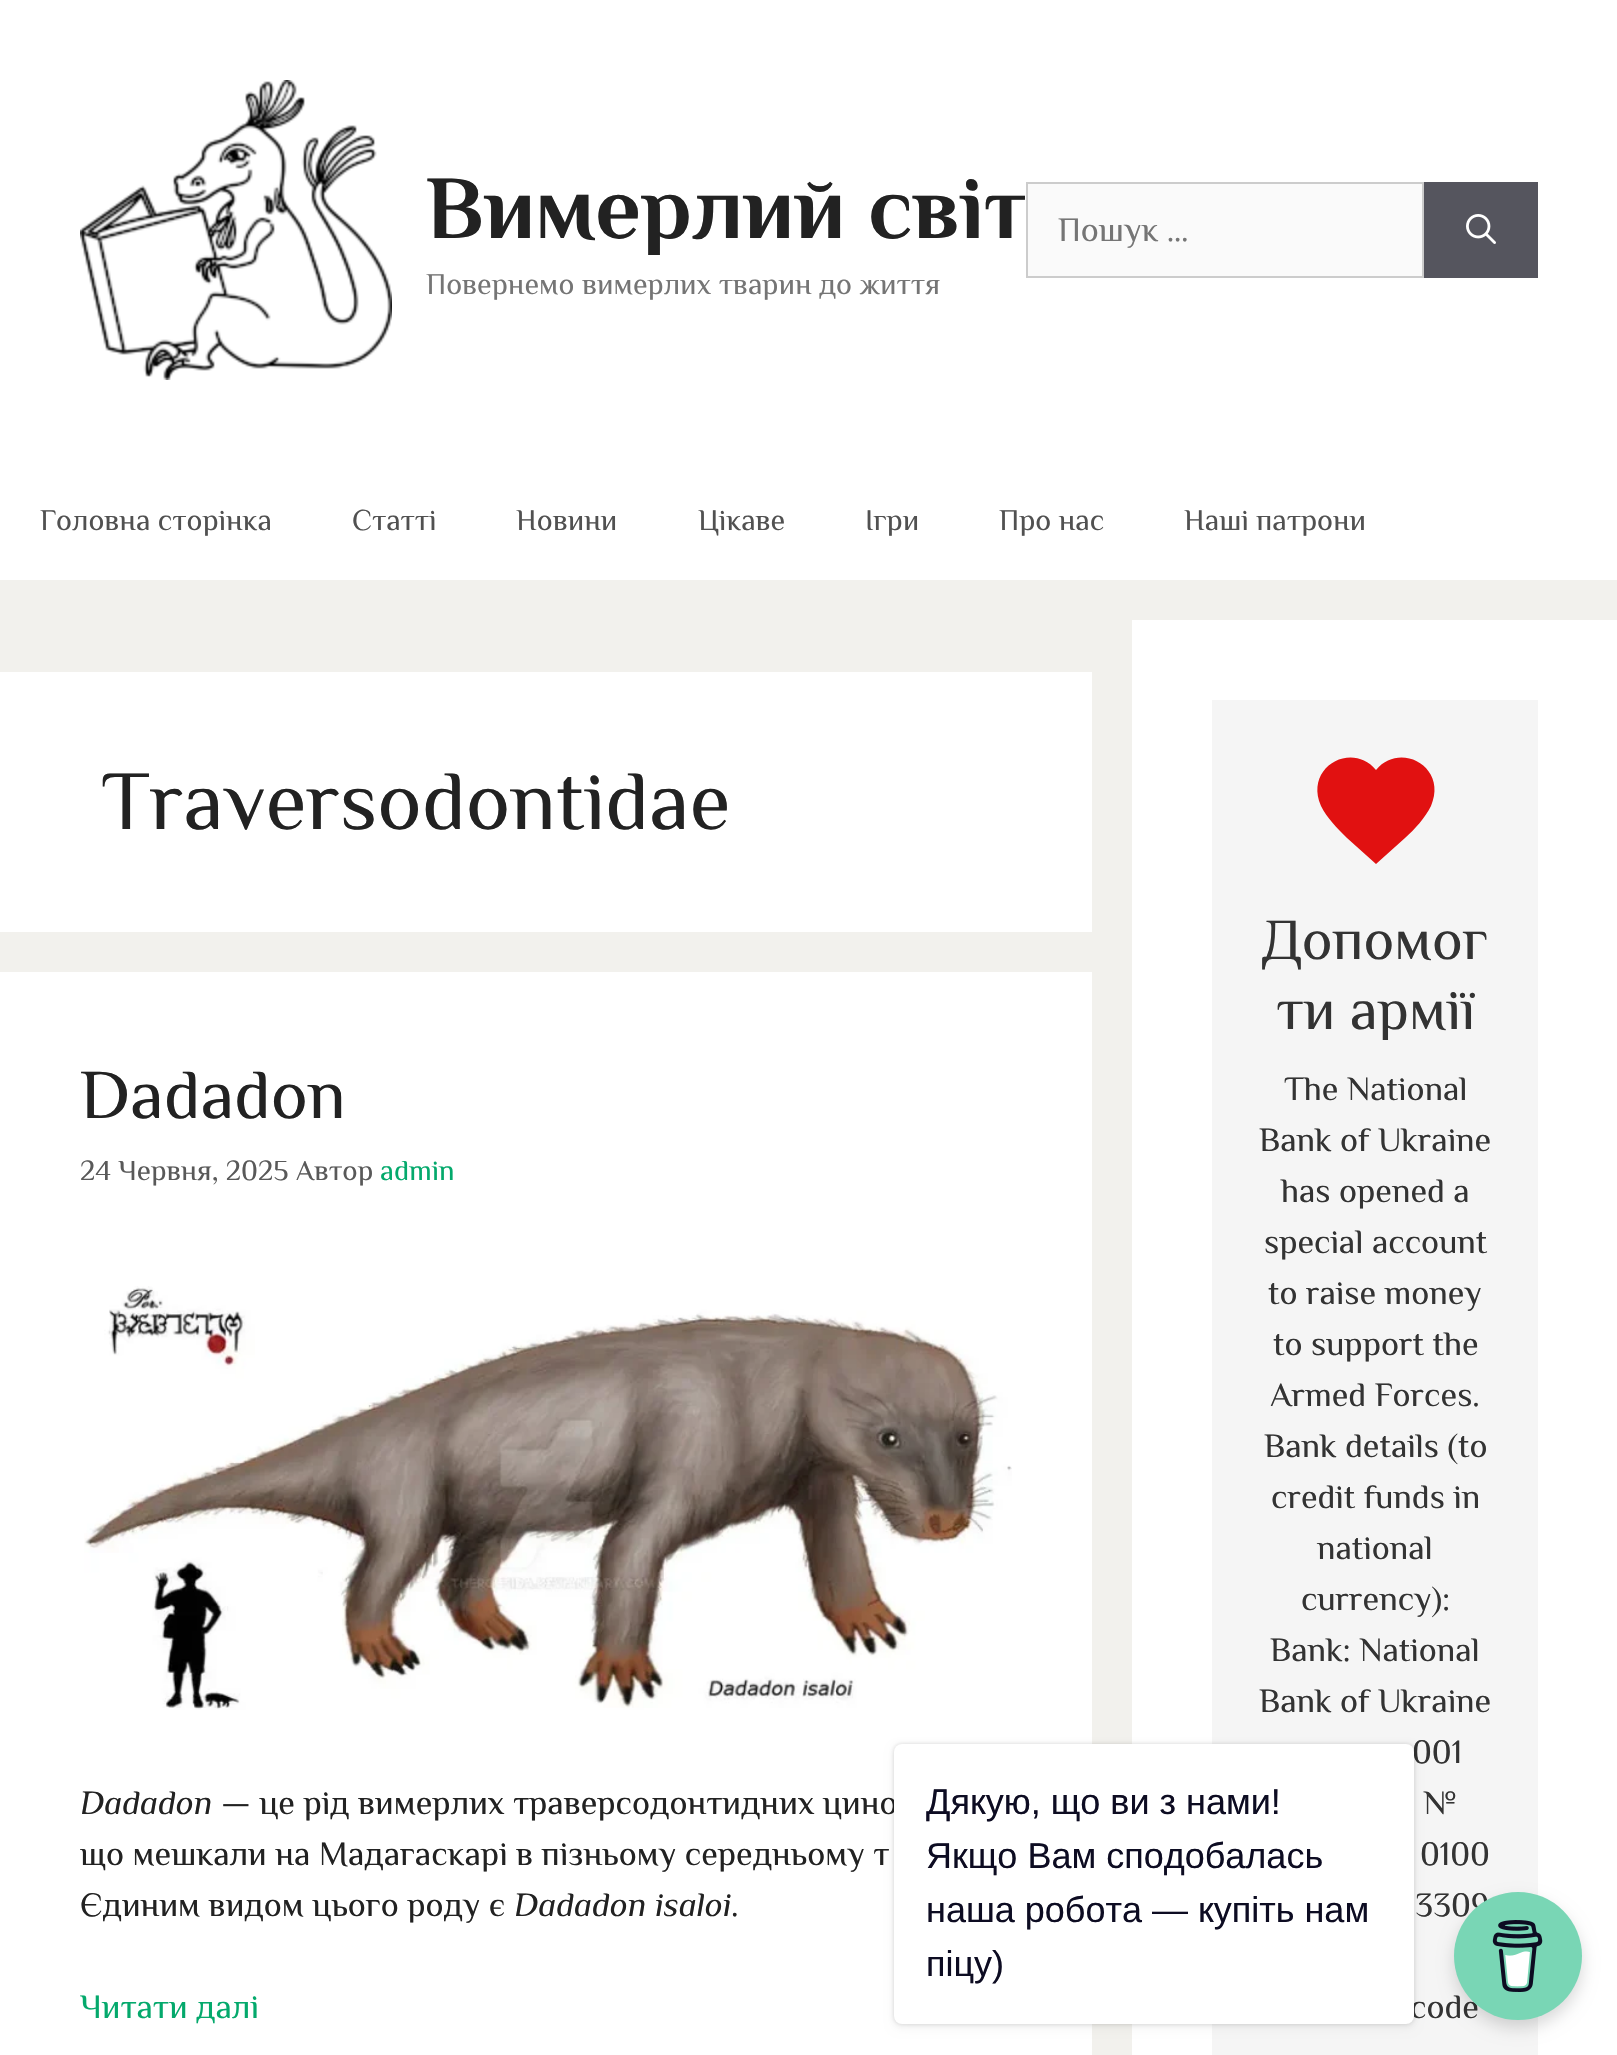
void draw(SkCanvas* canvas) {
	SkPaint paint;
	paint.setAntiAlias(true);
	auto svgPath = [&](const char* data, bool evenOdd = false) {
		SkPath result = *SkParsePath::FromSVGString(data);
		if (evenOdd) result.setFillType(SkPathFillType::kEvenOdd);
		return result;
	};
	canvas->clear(0xfff2f1ed);
	paint.setColor(0xffffffff);
	canvas->drawRect(SkRect::MakeXYWH(0, 0, 1617, 580), paint);
	canvas->drawImageRect(SkImages::DeferredFromEncodedData(SkData::MakeFromFileName("img1.png")), SkRect::MakeXYWH(80, 80, 312, 300), SkSamplingOptions());
	SkFont f1(fontMgr->matchFamilyStyle("Philosopher", SkFontStyle::Bold()), 90);
	f1.setSubpixel(true);
	paint.setColor(0xff222222);
	canvas->drawString("Вимерлий світ", 426, 238, f1, paint);
	SkFont f2(fontMgr->matchFamilyStyle("Philosopher", SkFontStyle::Normal()), 30);
	f2.setSubpixel(true);
	paint.setColor(0xff757575);
	canvas->drawString("Повернемо вимерлих тварин до життя", 426, 294, f2, paint);
	paint.setColor(0xfffafafa);
	canvas->drawRect(SkRect::MakeXYWH(1027, 183, 396, 94), paint);
	paint.setStroke(true);
	paint.setStrokeWidth(2);
	paint.setColor(0xffcccccc);
	canvas->drawRect(SkRect::MakeXYWH(1027, 183, 396, 94), paint);
	SkFont f3(fontMgr->matchFamilyStyle("Philosopher", SkFontStyle::Normal()), 34);
	f3.setSubpixel(true);
	paint.setStroke(false);
	paint.setColor(0xff757575);
	canvas->drawString("Пошук …", 1058, 241, f3, paint);
	paint.setColor(0xff55555e);
	canvas->drawRect(SkRect::MakeXYWH(1424, 182, 114, 96), paint);
	canvas->drawImageRect(SkImages::DeferredFromEncodedData(SkData::MakeFromFileName("img2.png")), SkRect::MakeXYWH(1466, 214, 30, 30), SkSamplingOptions());
	paint.setColor(0xff515151);
	canvas->drawString("Головна сторінка", 40, 530, f2, paint);
	canvas->drawString("Статті", 352, 530, f2, paint);
	canvas->drawString("Новини", 516, 530, f2, paint);
	canvas->drawString("Цікаве", 698, 530, f2, paint);
	canvas->drawString("Ігри", 865, 530, f2, paint);
	canvas->drawString("Про нас", 999, 530, f2, paint);
	canvas->drawString("Наші патрони", 1184, 530, f2, paint);
	paint.setColor(0xffffffff);
	canvas->drawRect(SkRect::MakeXYWH(0, 672, 1092, 260), paint);
	SkFont f4(fontMgr->matchFamilyStyle("Philosopher", SkFontStyle::Normal()), 84);
	f4.setSubpixel(true);
	paint.setColor(0xff222222);
	canvas->drawString("Traversodontidae", 101, 829, f4, paint);
	paint.setColor(0xffffffff);
	canvas->drawRect(SkRect::MakeXYWH(0, 972, 1092, 1083), paint);
	SkFont f5(fontMgr->matchFamilyStyle("Philosopher", SkFontStyle::Normal()), 70);
	f5.setSubpixel(true);
	paint.setColor(0xff222222);
	canvas->drawString("Dadadon", 80, 1118, f5, paint);
	SkFont f6(fontMgr->matchFamilyStyle("Philosopher", SkFontStyle::Normal()), 28.9);
	f6.setSubpixel(true);
	paint.setColor(0xff595959);
	canvas->drawString("24 Червня, 2025 Автор", 80, 1180, f6, paint);
	paint.setColor(0xff04a96c);
	canvas->drawString("admin", 380, 1180, f6, paint);
	canvas->drawImageRect(SkImages::DeferredFromEncodedData(SkData::MakeFromFileName("img3.png")), SkRect::MakeXYWH(84, 1286, 928, 424), SkSamplingOptions());
	SkFont f7(fontMgr->matchFamilyStyle("Philosopher", SkFontStyle::Italic()), 34);
	f7.setSubpixel(true);
	paint.setColor(0xff222222);
	canvas->drawString("Dadadon", 80, 1814, f7, paint);
	canvas->drawString("— це рід вимерлих траверсодонтидних цино", 221, 1814, f3, paint);
	canvas->drawString("що мешкали на Мадагаскарі в пізньому середньому т", 80, 1865, f3, paint);
	canvas->drawString("Єдиним видом цього роду є", 80, 1916, f3, paint);
	canvas->drawString("Dadadon isaloi", 514, 1916, f7, paint);
	canvas->drawString(".", 731, 1916, f3, paint);
	paint.setColor(0xff04a96c);
	canvas->drawString("Читати далі", 80, 2018, f3, paint);
	paint.setColor(0xffffffff);
	canvas->drawRect(SkRect::MakeXYWH(1132, 620, 485, 1435), paint);
	paint.setColor(0xfff5f5f5);
	canvas->drawRect(SkRect::MakeXYWH(1212, 700, 326, 1355), paint);
	paint.setColor(0xffe11111);
	canvas->drawPath(svgPath("M1376 864L1347 838C1337 828 1327 818 1321 806C1304 767 1352 741 1376 770C1400 741 1448 767 1431 806C1425 818 1415 829 1405 838Z"), paint);
	SkFont f8(fontMgr->matchFamilyStyle("Philosopher", SkFontStyle::Normal()), 58);
	f8.setSubpixel(true);
	paint.setColor(0xff333333);
	canvas->drawString("Допомог", 1262, 959, f8, paint);
	canvas->drawString("ти армії", 1276, 1029, f8, paint);
	canvas->drawString("The National", 1284, 1100, f3, paint);
	canvas->drawString("Bank of Ukraine", 1259, 1151, f3, paint);
	canvas->drawString("has opened a", 1281, 1202, f3, paint);
	canvas->drawString("special account", 1264, 1253, f3, paint);
	canvas->drawString("to raise money", 1268, 1304, f3, paint);
	canvas->drawString("to support the", 1273, 1355, f3, paint);
	canvas->drawString("Armed Forces.", 1270, 1406, f3, paint);
	canvas->drawString("Bank details (to", 1264, 1457, f3, paint);
	canvas->drawString("credit funds in", 1271, 1508, f3, paint);
	canvas->drawString("national", 1317, 1559, f3, paint);
	canvas->drawString("currency):", 1301, 1610, f3, paint);
	canvas->drawString("Bank: National", 1270, 1661, f3, paint);
	canvas->drawString("Bank of Ukraine", 1259, 1712, f3, paint);
	canvas->drawString("001", 1412, 1763, f3, paint);
	canvas->drawString("№", 1423, 1814, f3, paint);
	canvas->drawString("0100", 1420, 1865, f3, paint);
	canvas->drawString("3309", 1415, 1916, f3, paint);
	canvas->drawString("code", 1410, 2018, f3, paint);
	paint.setColor(0x26000000);
	paint.setMaskFilter(SkMaskFilter::MakeBlur(kNormal_SkBlurStyle, 2));
	canvas->drawRoundRect(SkRect::MakeXYWH(894, 1744, 520, 280), 8, 8, paint);
	paint.setMaskFilter(nullptr);
	paint.setColor(0x0d000000);
	paint.setMaskFilter(SkMaskFilter::MakeBlur(kNormal_SkBlurStyle, 5));
	canvas->drawRoundRect(SkRect::MakeXYWH(894, 1748, 520, 280), 8, 8, paint);
	paint.setMaskFilter(nullptr);
	paint.setColor(0xffffffff);
	canvas->drawRoundRect(SkRect::MakeXYWH(894, 1744, 520, 280), 8, 8, paint);
	SkFont f9(fontMgr->matchFamilyStyle("Liberation Sans", SkFontStyle::Normal()), 36);
	f9.setSubpixel(true);
	paint.setColor(0xff0d0c22);
	canvas->drawString("Дякую, що ви з нами!", 926, 1814, f9, paint);
	canvas->drawString("Якщо Вам сподобалась", 926, 1868, f9, paint);
	canvas->drawString("наша робота — купіть нам", 926, 1922, f9, paint);
	canvas->drawString("піцу)", 926, 1976, f9, paint);
	paint.setColor(0x26000000);
	paint.setMaskFilter(SkMaskFilter::MakeBlur(kNormal_SkBlurStyle, 8));
	canvas->drawRoundRect(SkRect::MakeXYWH(1454, 1900, 128, 128), 64, 64, paint);
	paint.setMaskFilter(nullptr);
	paint.setColor(0xff79d6b5);
	canvas->drawCircle(1518, 1956, 64, paint);
	canvas->drawImageRect(SkImages::DeferredFromEncodedData(SkData::MakeFromFileName("img4.png")), SkRect::MakeXYWH(1492, 1920, 51, 72), SkSamplingOptions());
}
